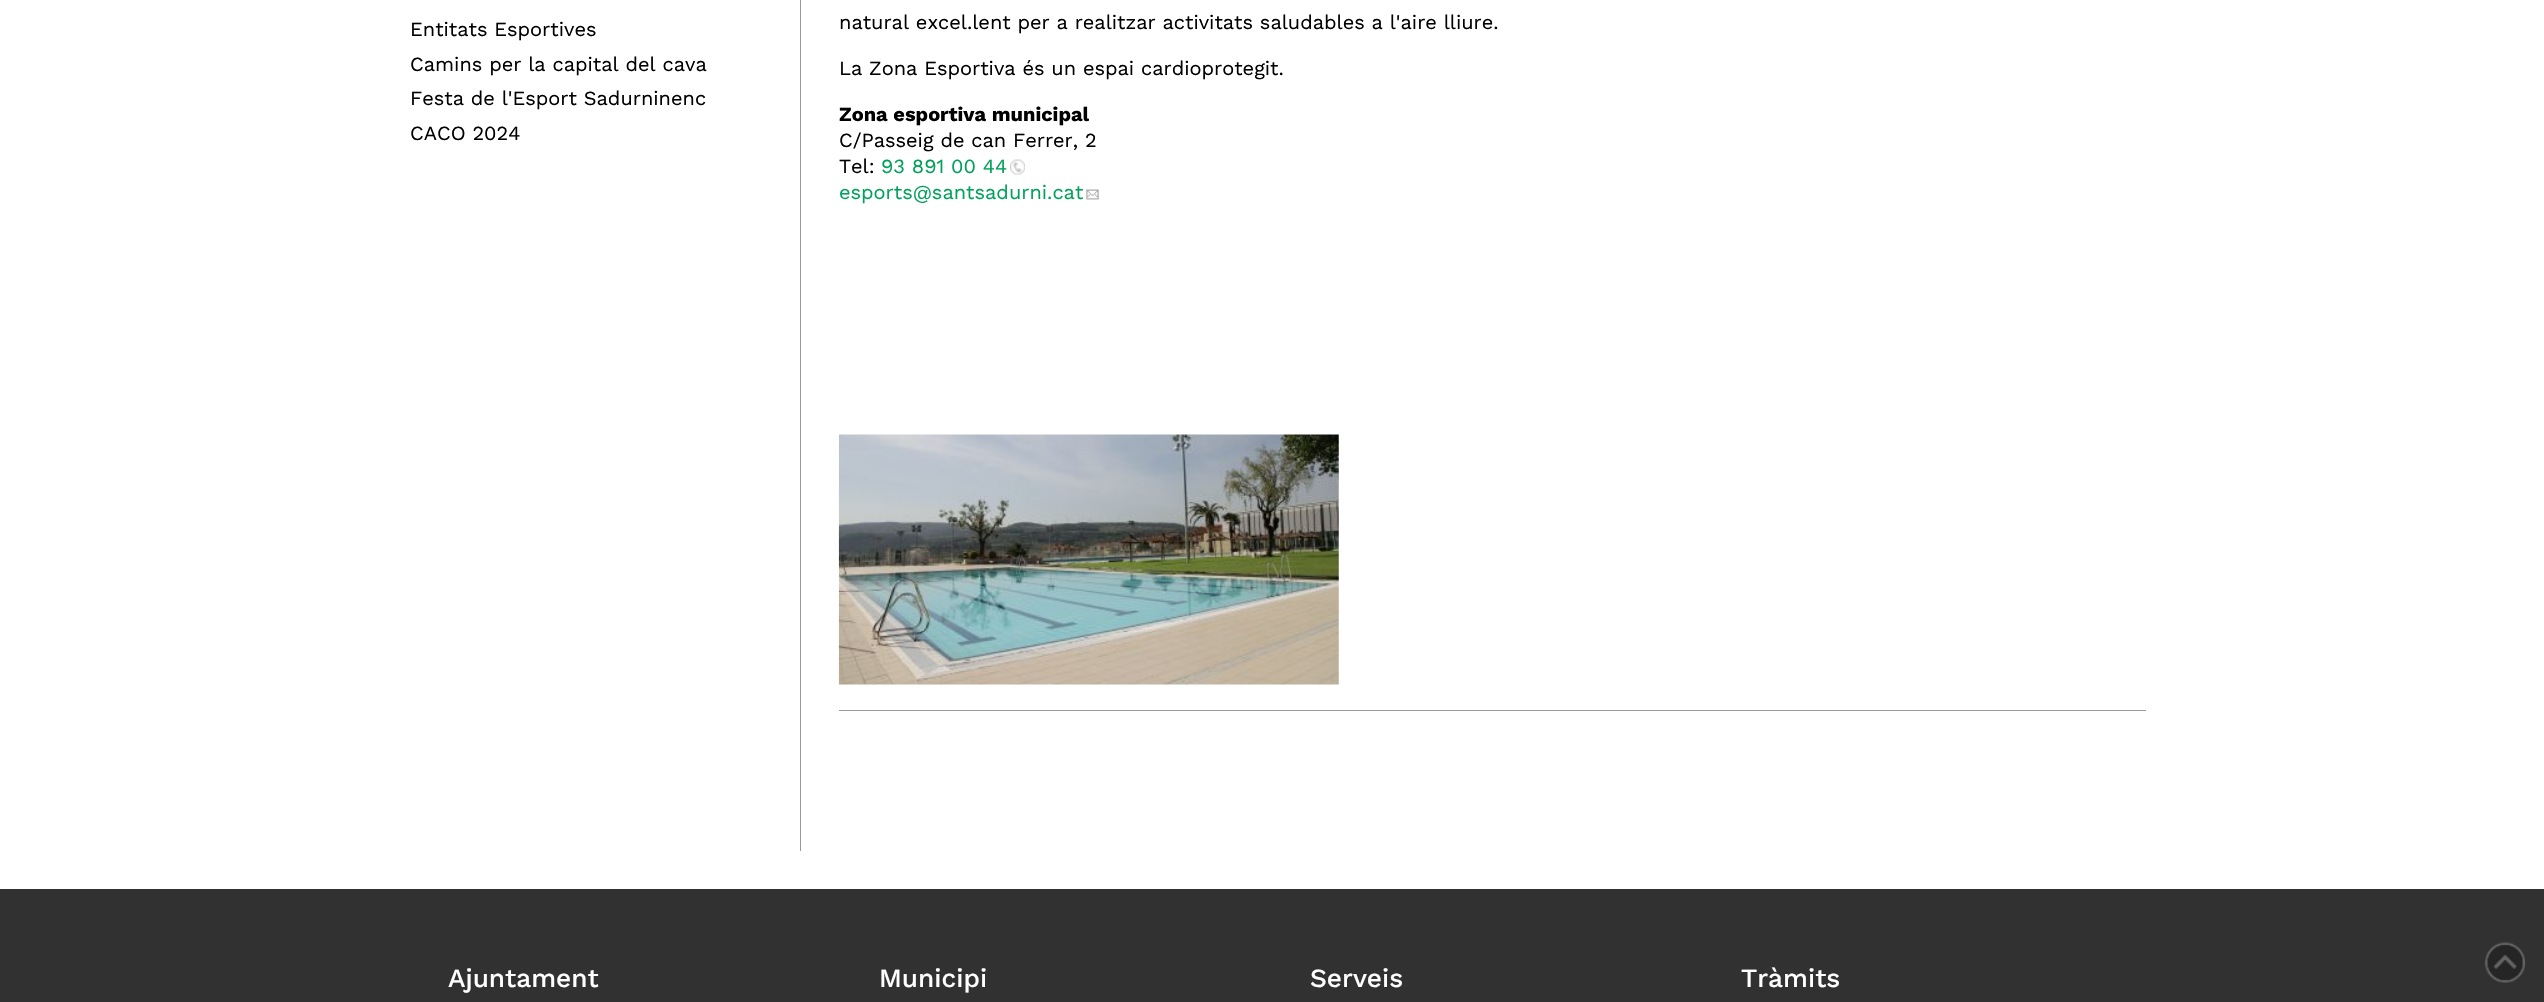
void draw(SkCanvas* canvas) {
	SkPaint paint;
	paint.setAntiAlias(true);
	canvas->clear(0xffffffff);
	SkFont f1(fontMgr->matchFamilyStyle("Work Sans", SkFontStyle::Normal()), 20);
	f1.setSubpixel(true);
	paint.setColor(0xff000000);
	canvas->drawString("Entitats Esportives", 410, 36, f1, paint);
	canvas->drawString("Camins per la capital del cava", 410, 71, f1, paint);
	canvas->drawString("Festa de l'Esport Sadurninenc", 410, 105, f1, paint);
	canvas->drawString("CACO 2024", 410, 140, f1, paint);
	paint.setColor(0xff999999);
	canvas->drawRect(SkRect::MakeXYWH(800, 0, 1, 851), paint);
	canvas->drawRect(SkRect::MakeXYWH(839, 710, 1307, 1), paint);
	paint.setColor(0xff000000);
	canvas->drawString("natural excel.lent per a realitzar activitats saludables a l'aire lliure.", 839, 29, f1, paint);
	canvas->drawString("La Zona Esportiva és un espai cardioprotegit.", 839, 75, f1, paint);
	SkFont f2(fontMgr->matchFamilyStyle("Work Sans", SkFontStyle::Bold()), 20);
	f2.setSubpixel(true);
	canvas->drawString("Zona esportiva municipal", 839, 121, f2, paint);
	canvas->drawString("C/Passeig de can Ferrer, 2", 839, 147, f1, paint);
	canvas->drawString("Tel:", 839, 173, f1, paint);
	paint.setColor(0xff00a15a);
	canvas->drawString("93 891 00 44", 881, 173, f1, paint);
	canvas->drawImageRect(SkImages::DeferredFromEncodedData(SkData::MakeFromFileName("img1.png")), SkRect::MakeXYWH(1010, 159, 15, 16), SkSamplingOptions());
	canvas->drawString("esports@santsadurni.cat", 839, 199, f1, paint);
	canvas->drawImageRect(SkImages::DeferredFromEncodedData(SkData::MakeFromFileName("img2.png")), SkRect::MakeXYWH(1086, 189, 13, 11), SkSamplingOptions());
	canvas->drawImageRect(SkImages::DeferredFromEncodedData(SkData::MakeFromFileName("img3.png")), SkRect::MakeXYWH(838, 434, 501, 251), SkSamplingOptions());
	paint.setColor(0xff313131);
	canvas->drawRect(SkRect::MakeXYWH(0, 889, 2544, 113), paint);
	SkFont f3(fontMgr->matchFamilyStyle("Work Sans", SkFontStyle(500, SkFontStyle::kNormal_Width, SkFontStyle::kUpright_Slant)), 26.25);
	f3.setSubpixel(true);
	paint.setColor(0xffffffff);
	canvas->drawString("Ajuntament", 448, 987, f3, paint);
	canvas->drawString("Municipi", 879, 987, f3, paint);
	canvas->drawString("Serveis", 1310, 987, f3, paint);
	canvas->drawString("Tràmits", 1741, 987, f3, paint);
	canvas->drawImageRect(SkImages::DeferredFromEncodedData(SkData::MakeFromFileName("img4.png")), SkRect::MakeXYWH(2485, 942, 40, 41), SkSamplingOptions());
}
